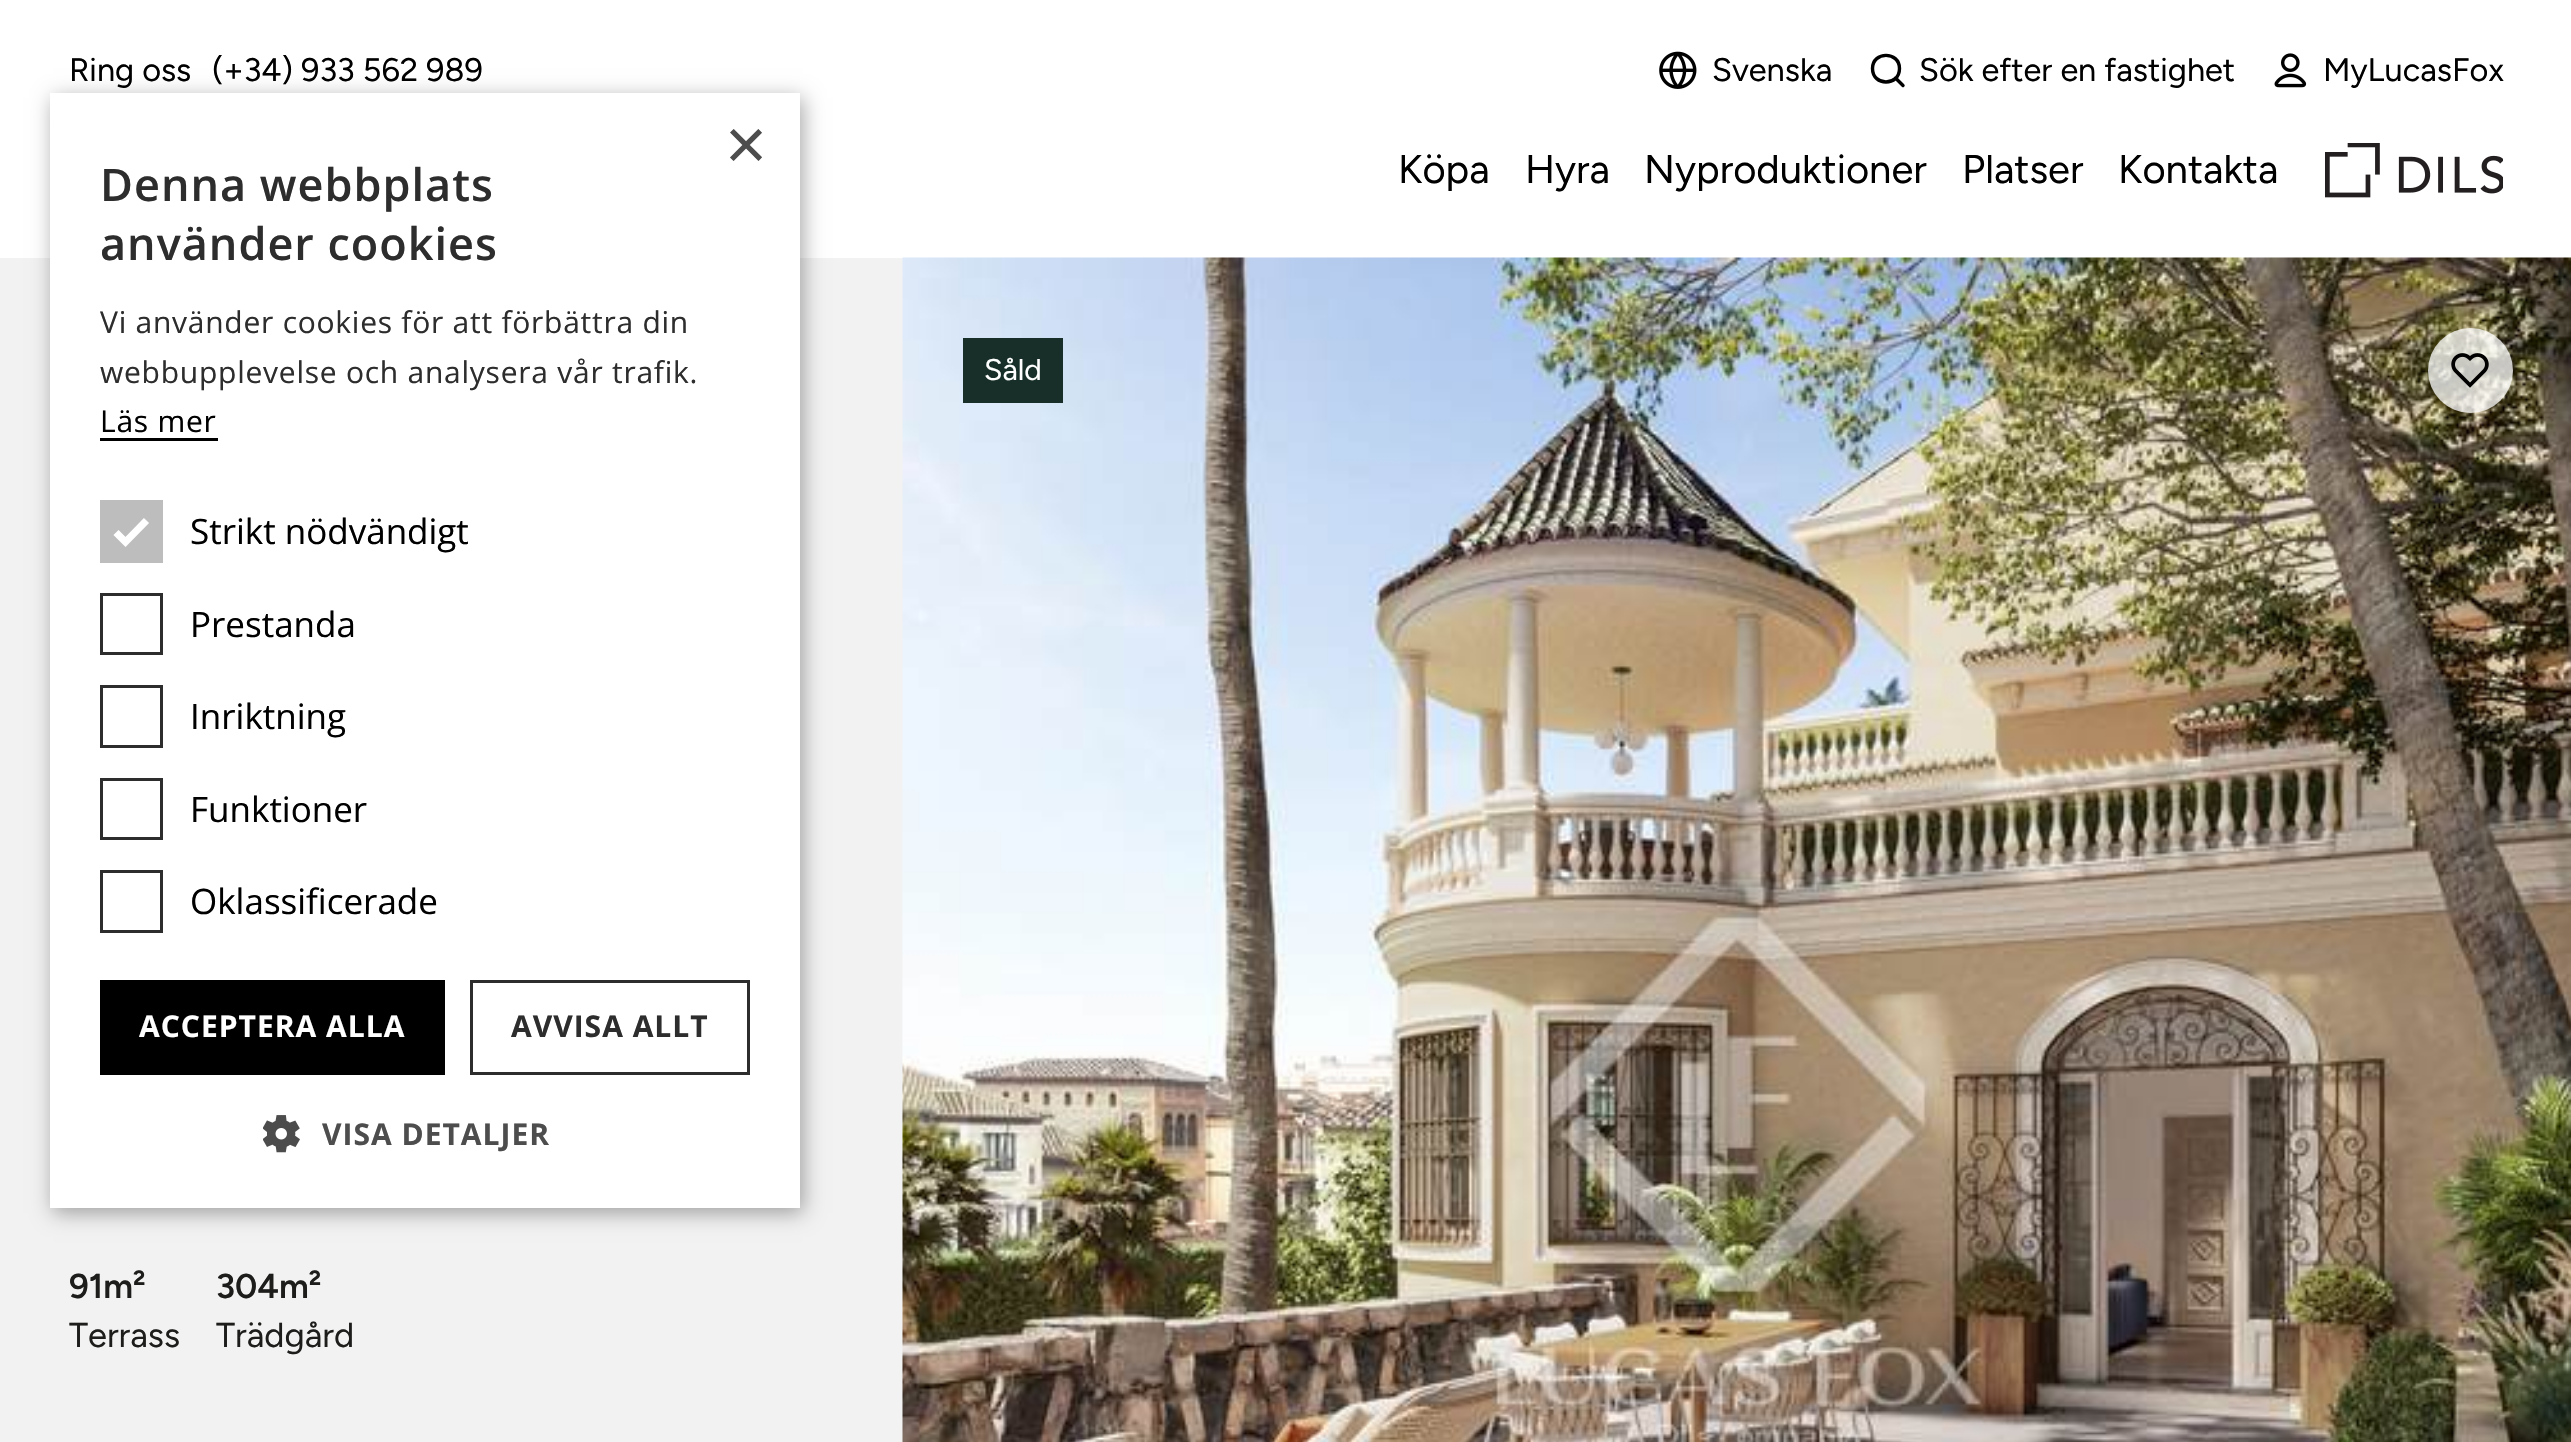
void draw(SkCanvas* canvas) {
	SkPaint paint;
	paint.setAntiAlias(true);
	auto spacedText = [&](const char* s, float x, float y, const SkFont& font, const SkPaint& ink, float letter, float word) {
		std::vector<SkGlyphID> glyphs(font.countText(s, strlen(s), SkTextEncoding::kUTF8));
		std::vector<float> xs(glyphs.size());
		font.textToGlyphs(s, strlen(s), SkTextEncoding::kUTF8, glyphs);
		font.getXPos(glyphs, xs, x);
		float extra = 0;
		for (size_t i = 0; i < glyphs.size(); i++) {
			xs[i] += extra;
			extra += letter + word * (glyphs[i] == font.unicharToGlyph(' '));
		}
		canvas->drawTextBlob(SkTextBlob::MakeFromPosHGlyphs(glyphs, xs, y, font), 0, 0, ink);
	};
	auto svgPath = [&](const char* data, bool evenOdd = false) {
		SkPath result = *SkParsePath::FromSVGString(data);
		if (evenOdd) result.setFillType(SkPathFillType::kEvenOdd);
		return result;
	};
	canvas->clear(0xffffffff);
	SkFont f1(fontMgr->matchFamilyStyle("Figtree", SkFontStyle(300, SkFontStyle::kNormal_Width, SkFontStyle::kUpright_Slant)), 32.5);
	f1.setSubpixel(true);
	paint.setColor(0xff000000);
	canvas->drawString("Ring oss", 69, 81, f1, paint);
	canvas->drawString("(+34) 933 562 989", 212, 81, f1, paint);
	canvas->drawImageRect(SkImages::DeferredFromEncodedData(SkData::MakeFromFileName("img1.png")), SkRect::MakeXYWH(1659, 51, 38, 38), SkSamplingOptions());
	canvas->drawString("Svenska", 1712, 81, f1, paint);
	paint.setStroke(true);
	paint.setStrokeWidth(3.4);
	paint.setStrokeCap(SkPaint::kRound_Cap);
	paint.setStrokeJoin(SkPaint::kRound_Join);
	canvas->drawPath(svgPath("M1903 85.5L1895.5 78M1899.5 68.5C1899.5 86.5 1872.5 86.5 1872.5 68.5C1872.5 51 1899.5 51 1899.5 68.5Z"), paint);
	paint.setStroke(false);
	canvas->drawString("Sök efter en fastighet", 1919, 81, f1, paint);
	canvas->drawImageRect(SkImages::DeferredFromEncodedData(SkData::MakeFromFileName("img2.png")), SkRect::MakeXYWH(2274, 53, 33, 35), SkSamplingOptions());
	canvas->drawString("MyLucasFox", 2323, 81, f1, paint);
	SkFont f2(fontMgr->matchFamilyStyle("Figtree", SkFontStyle(300, SkFontStyle::kNormal_Width, SkFontStyle::kUpright_Slant)), 40);
	f2.setSubpixel(true);
	canvas->drawString("Köpa", 1398, 183, f2, paint);
	canvas->drawString("Hyra", 1525, 183, f2, paint);
	canvas->drawString("Nyproduktioner", 1644, 183, f2, paint);
	canvas->drawString("Platser", 1962, 183, f2, paint);
	canvas->drawString("Kontakta", 2118, 183, f2, paint);
	canvas->drawImageRect(SkImages::DeferredFromEncodedData(SkData::MakeFromFileName("img3.png")), SkRect::MakeXYWH(2325, 143, 178, 55), SkSamplingOptions());
	paint.setColor(0xfff2f2f2);
	canvas->drawRect(SkRect::MakeXYWH(0, 258, 903, 1184), paint);
	paint.setColor(0x59000000);
	paint.setMaskFilter(SkMaskFilter::MakeBlur(kNormal_SkBlurStyle, 10));
	canvas->drawRect(SkRect::MakeXYWH(53, 98, 750, 1115), paint);
	paint.setMaskFilter(nullptr);
	paint.setColor(0xffffffff);
	canvas->drawRect(SkRect::MakeXYWH(50, 93, 750, 1115), paint);
	SkFont f3(fontMgr->matchFamilyStyle("Liberation Sans", SkFontStyle::Normal()), 72);
	f3.setSubpixel(true);
	paint.setColor(0xff4d4d4d);
	canvas->drawString("×", 725, 169, f3, paint);
	SkFont f4(fontMgr->matchFamilyStyle("Open Sans", SkFontStyle(600, SkFontStyle::kNormal_Width, SkFontStyle::kUpright_Slant)), 45);
	f4.setSubpixel(true);
	paint.setColor(0xff2d2d2d);
	spacedText("Denna webbplats", 100, 201, f4, paint, 1, 0);
	spacedText("använder cookies", 100, 260, f4, paint, 1, 0);
	SkFont f5(fontMgr->matchFamilyStyle("Open Sans", SkFontStyle::Normal()), 30);
	f5.setSubpixel(true);
	spacedText("Vi använder cookies för att förbättra din", 100, 333, f5, paint, 0.75, 0);
	spacedText("webbupplevelse och analysera vår trafik.", 100, 383, f5, paint, 0.75, 0);
	paint.setColor(0xff000000);
	spacedText("Läs mer", 100, 432, f5, paint, 0.75, 0);
	canvas->drawRect(SkRect::MakeXYWH(100, 438, 118, 3), paint);
	paint.setColor(0xffbdbdbd);
	canvas->drawRect(SkRect::MakeXYWH(100, 500, 63, 63), paint);
	paint.setStroke(true);
	paint.setStrokeWidth(7.2);
	paint.setStrokeCap(SkPaint::kButt_Cap);
	paint.setStrokeJoin(SkPaint::kMiter_Join);
	paint.setColor(0xffffffff);
	canvas->drawPath(svgPath("M116 532.5L125.5 542L146.5 520.5"), paint);
	SkFont f6(fontMgr->matchFamilyStyle("Open Sans", SkFontStyle::Normal()), 35);
	f6.setSubpixel(true);
	paint.setStroke(false);
	paint.setColor(0xff000000);
	canvas->drawString("Strikt nödvändigt", 190, 544, f6, paint);
	paint.setStroke(true);
	paint.setStrokeWidth(3);
	paint.setColor(0xff2d2d2d);
	canvas->drawRect(SkRect::MakeXYWH(101.5, 594.5, 60, 59), paint);
	paint.setStroke(false);
	paint.setColor(0xff000000);
	canvas->drawString("Prestanda", 190, 637, f6, paint);
	paint.setStroke(true);
	paint.setColor(0xff2d2d2d);
	canvas->drawRect(SkRect::MakeXYWH(101.5, 686.5, 60, 60), paint);
	paint.setStroke(false);
	paint.setColor(0xff000000);
	canvas->drawString("Inriktning", 190, 729, f6, paint);
	paint.setStroke(true);
	paint.setColor(0xff2d2d2d);
	canvas->drawRect(SkRect::MakeXYWH(101.5, 779.5, 60, 59), paint);
	paint.setStroke(false);
	paint.setColor(0xff000000);
	canvas->drawString("Funktioner", 190, 822, f6, paint);
	paint.setStroke(true);
	paint.setColor(0xff2d2d2d);
	canvas->drawRect(SkRect::MakeXYWH(101.5, 871.5, 60, 60), paint);
	paint.setStroke(false);
	paint.setColor(0xff000000);
	canvas->drawString("Oklassificerade", 190, 914, f6, paint);
	canvas->drawRect(SkRect::MakeXYWH(100, 980, 345, 95), paint);
	SkFont f7(fontMgr->matchFamilyStyle("Open Sans", SkFontStyle::Bold()), 30);
	f7.setSubpixel(true);
	paint.setColor(0xffffffff);
	spacedText("ACCEPTERA ALLA", 139, 1037, f7, paint, 1, 0);
	paint.setStroke(true);
	paint.setColor(0xff2d2d2d);
	canvas->drawRect(SkRect::MakeXYWH(471.5, 981.5, 277, 92), paint);
	paint.setStroke(false);
	spacedText("AVVISA ALLT", 511, 1037, f7, paint, 1, 0);
	canvas->drawImageRect(SkImages::DeferredFromEncodedData(SkData::MakeFromFileName("img4.png")), SkRect::MakeXYWH(263, 1115, 37, 38), SkSamplingOptions());
	paint.setColor(0xff4d4d4d);
	spacedText("VISA DETALJER", 322, 1145, f7, paint, 1, 0);
	canvas->drawImageRect(SkImages::DeferredFromEncodedData(SkData::MakeFromFileName("img5.png")), SkRect::MakeXYWH(902, 257, 1669, 1185), SkSamplingOptions());
	paint.setColor(0xff172f28);
	canvas->drawRect(SkRect::MakeXYWH(963, 338, 100, 65), paint);
	SkFont f8(fontMgr->matchFamilyStyle("Figtree", SkFontStyle(300, SkFontStyle::kNormal_Width, SkFontStyle::kUpright_Slant)), 30);
	f8.setSubpixel(true);
	paint.setColor(0xffffffff);
	canvas->drawString("Såld", 984, 380, f8, paint);
	paint.setColor(0xbfffffff);
	canvas->drawCircle(2470.5, 370.5, 42.5, paint);
	canvas->drawImageRect(SkImages::DeferredFromEncodedData(SkData::MakeFromFileName("img6.png")), SkRect::MakeXYWH(2451, 353, 38, 35), SkSamplingOptions());
	SkFont f9(fontMgr->matchFamilyStyle("Figtree", SkFontStyle(600, SkFontStyle::kNormal_Width, SkFontStyle::kUpright_Slant)), 34.5);
	f9.setSubpixel(true);
	paint.setColor(0xff1d1d1b);
	canvas->drawString("91m²", 69, 1298, f9, paint);
	SkFont f10(fontMgr->matchFamilyStyle("Figtree", SkFontStyle(300, SkFontStyle::kNormal_Width, SkFontStyle::kUpright_Slant)), 34.5);
	f10.setSubpixel(true);
	canvas->drawString("Terrass", 69, 1347, f10, paint);
	canvas->drawString("304m²", 216, 1298, f9, paint);
	canvas->drawString("Trädgård", 216, 1347, f10, paint);
}
